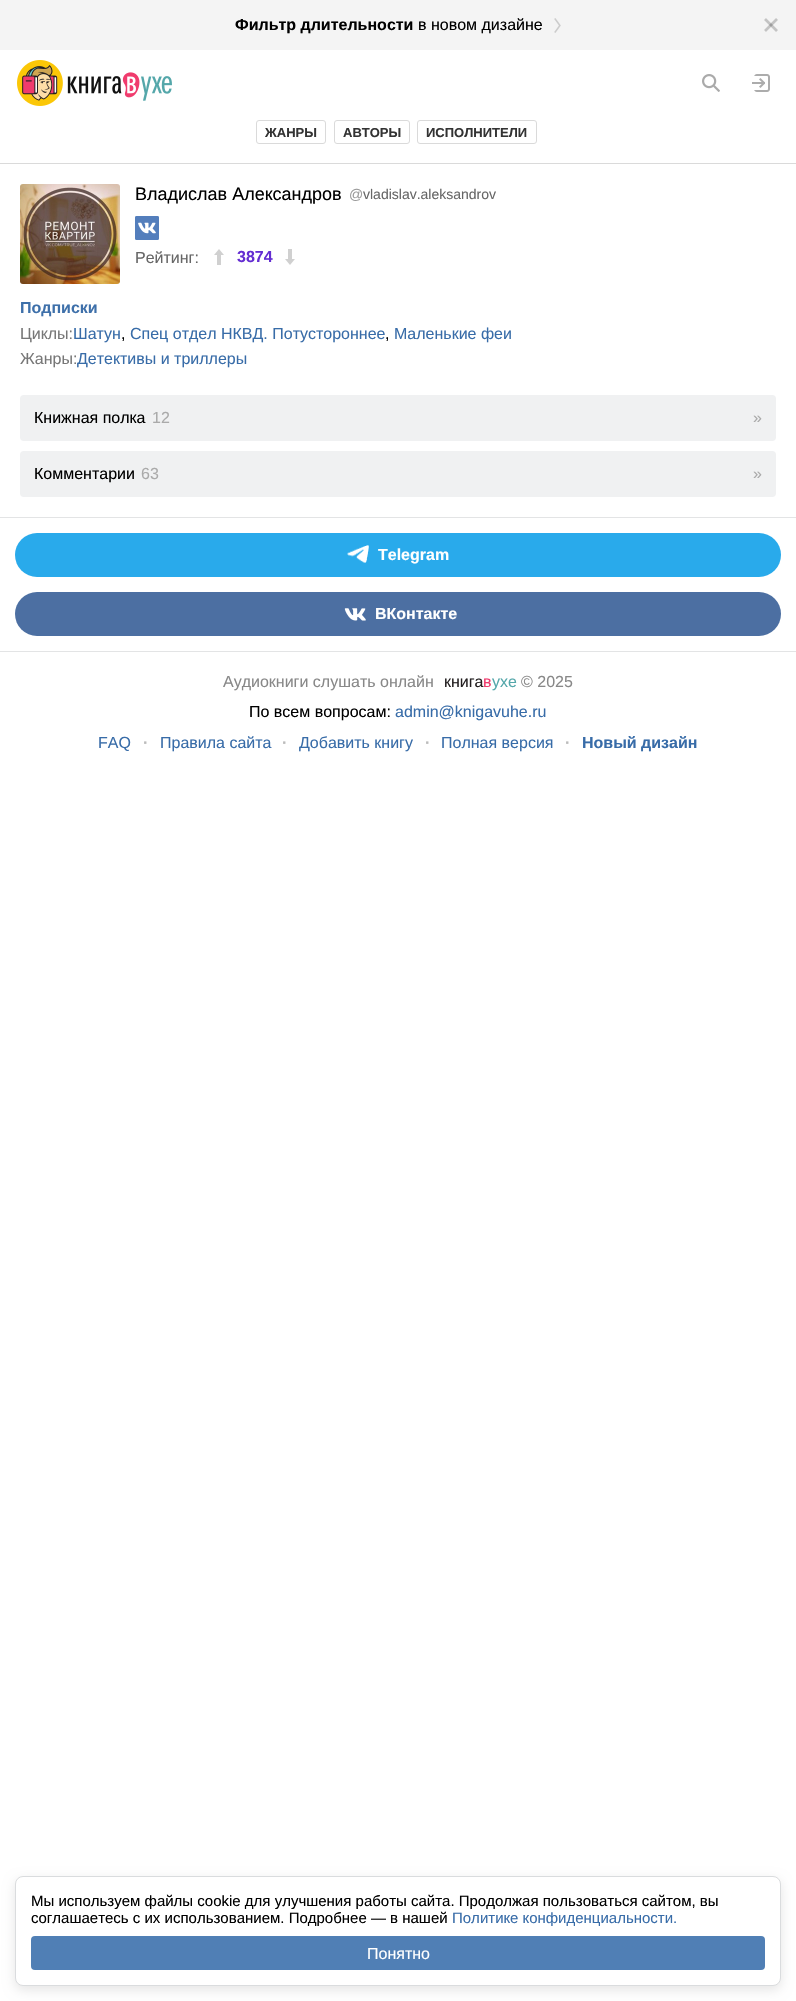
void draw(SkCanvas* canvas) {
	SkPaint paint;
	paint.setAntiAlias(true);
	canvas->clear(0xffffffff);
	paint.setColor(0xfff4f4f4);
	canvas->drawRect(SkRect::MakeXYWH(0, 0, 796, 50), paint);
	SkFont f1(fontMgr->matchFamilyStyle("Liberation Sans", SkFontStyle::Bold()), 16);
	f1.setSubpixel(true);
	paint.setColor(0xff000000);
	canvas->drawString("Фильтр длительности", 235, 30, f1, paint);
	SkFont f2(fontMgr->matchFamilyStyle("Liberation Sans", SkFontStyle::Normal()), 16);
	f2.setSubpixel(true);
	canvas->drawString("в новом дизайне", 418, 30, f2, paint);
	canvas->drawImageRect(SkImages::DeferredFromEncodedData(SkData::MakeFromFileName("img1.png")), SkRect::MakeXYWH(554, 18, 7, 15), SkSamplingOptions());
	canvas->drawImageRect(SkImages::DeferredFromEncodedData(SkData::MakeFromFileName("img2.png")), SkRect::MakeXYWH(764, 18, 14, 14), SkSamplingOptions());
	canvas->drawImageRect(SkImages::DeferredFromEncodedData(SkData::MakeFromFileName("img3.png")), SkRect::MakeXYWH(17, 60, 155, 46), SkSamplingOptions());
	canvas->drawImageRect(SkImages::DeferredFromEncodedData(SkData::MakeFromFileName("img4.png")), SkRect::MakeXYWH(702, 74, 18, 18), SkSamplingOptions());
	canvas->drawImageRect(SkImages::DeferredFromEncodedData(SkData::MakeFromFileName("img5.png")), SkRect::MakeXYWH(752, 74, 18, 18), SkSamplingOptions());
	paint.setColor(0xffdadada);
	canvas->drawRect(SkRect::MakeXYWH(0, 163, 796, 1), paint);
	paint.setStroke(true);
	paint.setStrokeWidth(1);
	canvas->drawRoundRect(SkRect::MakeXYWH(256.5, 120.5, 69, 23), 2.5, 2.5, paint);
	SkFont f3(fontMgr->matchFamilyStyle("Liberation Sans", SkFontStyle::Bold()), 13);
	f3.setSubpixel(true);
	paint.setStroke(false);
	paint.setColor(0xff333333);
	canvas->drawString("ЖАНРЫ", 265, 137, f3, paint);
	paint.setStroke(true);
	paint.setColor(0xffdadada);
	canvas->drawRoundRect(SkRect::MakeXYWH(334.5, 120.5, 75, 23), 2.5, 2.5, paint);
	paint.setStroke(false);
	paint.setColor(0xff333333);
	canvas->drawString("АВТОРЫ", 343, 137, f3, paint);
	paint.setStroke(true);
	paint.setColor(0xffdadada);
	canvas->drawRoundRect(SkRect::MakeXYWH(417.5, 120.5, 119, 23), 2.5, 2.5, paint);
	paint.setStroke(false);
	paint.setColor(0xff333333);
	canvas->drawString("ИСПОЛНИТЕЛИ", 426, 137, f3, paint);
	canvas->drawImageRect(SkImages::DeferredFromEncodedData(SkData::MakeFromFileName("img6.png")), SkRect::MakeXYWH(20, 184, 100, 100), SkSamplingOptions());
	SkFont f4(fontMgr->matchFamilyStyle("Liberation Sans", SkFontStyle::Normal()), 18);
	f4.setSubpixel(true);
	paint.setColor(0xff000000);
	canvas->drawString("Владислав Александров", 135, 200, f4, paint);
	SkFont f5(fontMgr->matchFamilyStyle("Liberation Sans", SkFontStyle::Normal()), 14);
	f5.setSubpixel(true);
	paint.setColor(0xff999999);
	canvas->drawString("@", 349, 199, f5, paint);
	paint.setColor(0xff666666);
	canvas->drawString("vladislav.aleksandrov", 363, 199, f5, paint);
	canvas->drawImageRect(SkImages::DeferredFromEncodedData(SkData::MakeFromFileName("img7.png")), SkRect::MakeXYWH(135, 216, 24, 24), SkSamplingOptions());
	canvas->drawString("Рейтинг:", 135, 263, f2, paint);
	canvas->drawImageRect(SkImages::DeferredFromEncodedData(SkData::MakeFromFileName("img8.png")), SkRect::MakeXYWH(214, 249, 10, 16), SkSamplingOptions());
	paint.setColor(0xff642dd2);
	canvas->drawString("3874", 237, 262, f1, paint);
	canvas->drawImageRect(SkImages::DeferredFromEncodedData(SkData::MakeFromFileName("img9.png")), SkRect::MakeXYWH(285, 249, 10, 16), SkSamplingOptions());
	paint.setColor(0xff3e70aa);
	canvas->drawString("Подписки", 20, 313, f1, paint);
	paint.setColor(0xff777777);
	canvas->drawString("Циклы:", 20, 339, f2, paint);
	paint.setColor(0xff386ca8);
	canvas->drawString("Шатун", 73, 339, f2, paint);
	paint.setColor(0xff000000);
	canvas->drawString(",", 121, 339, f2, paint);
	paint.setColor(0xff386ca8);
	canvas->drawString("Спец отдел НКВД. Потустороннее", 130, 339, f2, paint);
	paint.setColor(0xff000000);
	canvas->drawString(",", 385, 339, f2, paint);
	paint.setColor(0xff386ca8);
	canvas->drawString("Маленькие феи", 394, 339, f2, paint);
	paint.setColor(0xff777777);
	canvas->drawString("Жанры:", 20, 364, f2, paint);
	paint.setColor(0xff386ca8);
	canvas->drawString("Детективы и триллеры", 77, 364, f2, paint);
	paint.setColor(0xfff0f1f2);
	canvas->drawRoundRect(SkRect::MakeXYWH(20, 395, 756, 46), 4, 4, paint);
	paint.setColor(0xff000000);
	canvas->drawString("Книжная полка", 34, 423, f2, paint);
	paint.setColor(0xffaaaaaa);
	canvas->drawString("12", 152, 423, f2, paint);
	canvas->drawString("»", 753, 423, f2, paint);
	paint.setColor(0xfff0f1f2);
	canvas->drawRoundRect(SkRect::MakeXYWH(20, 451, 756, 46), 4, 4, paint);
	paint.setColor(0xff000000);
	canvas->drawString("Комментарии", 34, 479, f2, paint);
	paint.setColor(0xffaaaaaa);
	canvas->drawString("63", 141, 479, f2, paint);
	canvas->drawString("»", 753, 479, f2, paint);
	paint.setColor(0xffe3e4e5);
	canvas->drawRect(SkRect::MakeXYWH(0, 517, 796, 1), paint);
	paint.setColor(0xff29aaeb);
	canvas->drawRoundRect(SkRect::MakeXYWH(15, 533, 766, 44), 22, 22, paint);
	canvas->drawImageRect(SkImages::DeferredFromEncodedData(SkData::MakeFromFileName("img10.png")), SkRect::MakeXYWH(347, 545, 22, 18), SkSamplingOptions());
	paint.setColor(0xffffffff);
	canvas->drawString("Telegram", 378, 560, f1, paint);
	paint.setColor(0xff4c6fa2);
	canvas->drawRoundRect(SkRect::MakeXYWH(15, 592, 766, 44), 22, 22, paint);
	canvas->drawImageRect(SkImages::DeferredFromEncodedData(SkData::MakeFromFileName("img11.png")), SkRect::MakeXYWH(344, 608, 22, 13), SkSamplingOptions());
	paint.setColor(0xffffffff);
	canvas->drawString("ВКонтакте", 375, 619, f1, paint);
	paint.setColor(0xffe3e4e5);
	canvas->drawRect(SkRect::MakeXYWH(0, 651, 796, 1), paint);
	paint.setColor(0xff888888);
	canvas->drawString("Аудиокниги слушать онлайн", 223, 687, f2, paint);
	paint.setColor(0xff231f20);
	canvas->drawString("книга", 444, 687, f2, paint);
	paint.setColor(0xfff03b6d);
	canvas->drawString("в", 483, 687, f2, paint);
	paint.setColor(0xff54a7aa);
	canvas->drawString("ухе", 492, 687, f2, paint);
	paint.setColor(0xff888888);
	canvas->drawString("© 2025", 521, 687, f2, paint);
	paint.setColor(0xff000000);
	canvas->drawString("По всем вопросам:", 249, 717, f2, paint);
	paint.setColor(0xff386ca8);
	canvas->drawString("admin@knigavuhe.ru", 395, 717, f2, paint);
	canvas->drawString("FAQ", 98, 748, f2, paint);
	paint.setColor(0xffbbbbbb);
	canvas->drawString("·", 143, 748, f1, paint);
	paint.setColor(0xff386ca8);
	canvas->drawString("Правила сайта", 160, 748, f2, paint);
	paint.setColor(0xffbbbbbb);
	canvas->drawString("·", 282, 748, f1, paint);
	paint.setColor(0xff386ca8);
	canvas->drawString("Добавить книгу", 299, 748, f2, paint);
	paint.setColor(0xffbbbbbb);
	canvas->drawString("·", 425, 748, f1, paint);
	paint.setColor(0xff386ca8);
	canvas->drawString("Полная версия", 441, 748, f2, paint);
	paint.setColor(0xffbbbbbb);
	canvas->drawString("·", 565, 748, f1, paint);
	paint.setColor(0xff386ca8);
	canvas->drawString("Новый дизайн", 582, 748, f1, paint);
	paint.setColor(0x1a000000);
	paint.setMaskFilter(SkMaskFilter::MakeBlur(kNormal_SkBlurStyle, 6));
	canvas->drawRoundRect(SkRect::MakeXYWH(15, 1880, 766, 110), 8, 8, paint);
	paint.setMaskFilter(nullptr);
	paint.setColor(0xffffffff);
	canvas->drawRoundRect(SkRect::MakeXYWH(15.5, 1876.5, 765, 109), 7.5, 7.5, paint);
	paint.setStroke(true);
	paint.setColor(0xffdadcde);
	canvas->drawRoundRect(SkRect::MakeXYWH(15.5, 1876.5, 765, 109), 7.5, 7.5, paint);
	SkFont f6(fontMgr->matchFamilyStyle("Liberation Sans", SkFontStyle::Normal()), 15);
	f6.setSubpixel(true);
	paint.setStroke(false);
	paint.setColor(0xff000000);
	canvas->drawString("Мы используем файлы cookie для улучшения работы сайта. Продолжая пользоваться сайтом, вы", 31, 1906, f6, paint);
	canvas->drawString("соглашаетесь с их использованием. Подробнее — в нашей", 31, 1923, f6, paint);
	paint.setColor(0xff386ca8);
	canvas->drawString("Политике конфиденциальности.", 452, 1923, f6, paint);
	paint.setColor(0xff507fb5);
	canvas->drawRoundRect(SkRect::MakeXYWH(31, 1936, 734, 34), 4, 4, paint);
	paint.setColor(0xffffffff);
	canvas->drawString("Понятно", 367, 1959, f2, paint);
}
